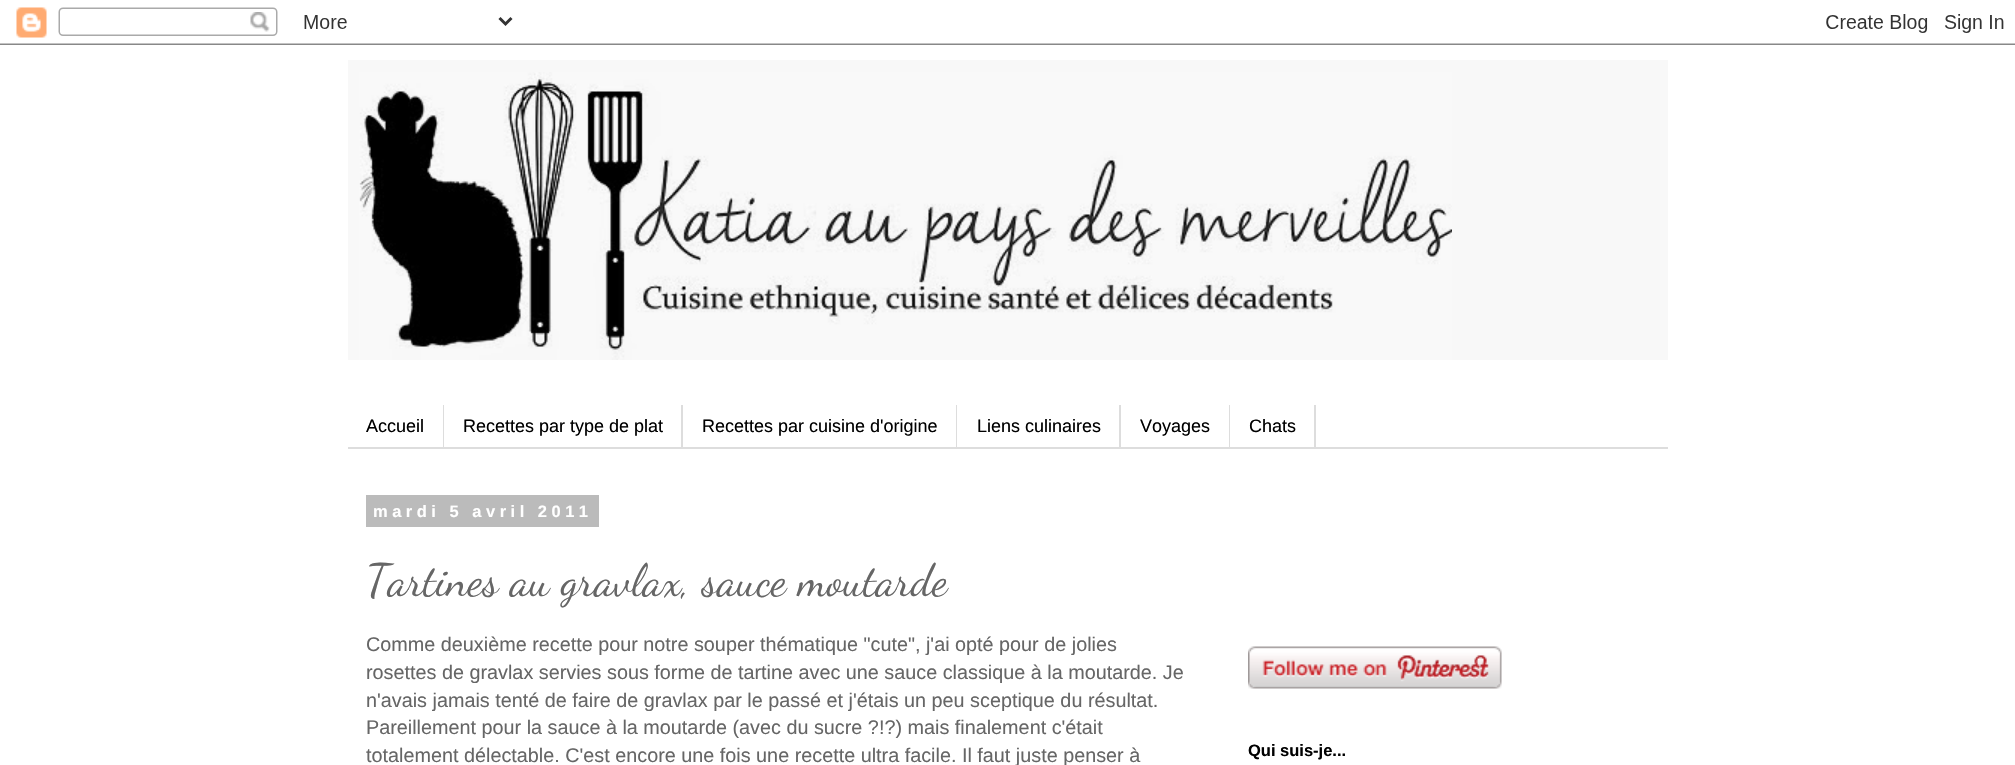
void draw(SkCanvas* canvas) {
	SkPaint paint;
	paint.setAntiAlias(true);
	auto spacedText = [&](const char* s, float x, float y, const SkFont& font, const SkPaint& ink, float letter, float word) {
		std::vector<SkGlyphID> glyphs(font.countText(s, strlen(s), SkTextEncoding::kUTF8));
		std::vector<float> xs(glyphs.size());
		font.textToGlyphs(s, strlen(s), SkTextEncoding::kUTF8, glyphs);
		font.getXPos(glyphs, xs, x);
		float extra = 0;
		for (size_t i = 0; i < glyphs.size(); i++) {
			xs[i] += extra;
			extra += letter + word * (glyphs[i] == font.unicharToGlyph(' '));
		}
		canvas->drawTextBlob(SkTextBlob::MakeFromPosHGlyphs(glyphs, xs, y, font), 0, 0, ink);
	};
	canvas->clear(0xffffffff);
	canvas->drawImageRect(SkImages::DeferredFromEncodedData(SkData::MakeFromFileName("img1.png")), SkRect::MakeXYWH(0, 7, 2015, 38), SkSamplingOptions());
	paint.setColor(0xfff8f8f8);
	canvas->drawRect(SkRect::MakeXYWH(348, 60, 1320, 300), paint);
	canvas->drawImageRect(SkImages::DeferredFromEncodedData(SkData::MakeFromFileName("img2.png")), SkRect::MakeXYWH(359, 72, 1093, 288), SkSamplingOptions());
	paint.setColor(0xffdddddd);
	canvas->drawRect(SkRect::MakeXYWH(348, 447, 1320, 2), paint);
	canvas->drawRect(SkRect::MakeXYWH(443, 405, 1, 42), paint);
	SkFont f1(fontMgr->matchFamilyStyle("Liberation Sans", SkFontStyle::Normal()), 18);
	f1.setSubpixel(true);
	paint.setColor(0xff000000);
	canvas->drawString("Accueil", 366, 432, f1, paint);
	paint.setColor(0xffdddddd);
	canvas->drawRect(SkRect::MakeXYWH(681, 405, 2, 42), paint);
	paint.setColor(0xff000000);
	canvas->drawString("Recettes par type de plat", 463, 432, f1, paint);
	paint.setColor(0xffdddddd);
	canvas->drawRect(SkRect::MakeXYWH(956, 405, 1, 42), paint);
	paint.setColor(0xff000000);
	canvas->drawString("Recettes par cuisine d'origine", 702, 432, f1, paint);
	paint.setColor(0xffdddddd);
	canvas->drawRect(SkRect::MakeXYWH(1119, 405, 2, 42), paint);
	paint.setColor(0xff000000);
	canvas->drawString("Liens culinaires", 977, 432, f1, paint);
	paint.setColor(0xffdddddd);
	canvas->drawRect(SkRect::MakeXYWH(1229, 405, 1, 42), paint);
	paint.setColor(0xff000000);
	canvas->drawString("Voyages", 1140, 432, f1, paint);
	paint.setColor(0xffdddddd);
	canvas->drawRect(SkRect::MakeXYWH(1314, 405, 2, 42), paint);
	paint.setColor(0xff000000);
	canvas->drawString("Chats", 1249, 432, f1, paint);
	paint.setColor(0xffbbbbbb);
	canvas->drawRect(SkRect::MakeXYWH(366, 495, 233, 32), paint);
	SkFont f2(fontMgr->matchFamilyStyle("Liberation Sans", SkFontStyle::Bold()), 16.5);
	f2.setSubpixel(true);
	paint.setColor(0xffffffff);
	spacedText("mardi 5 avril 2011", 373, 517, f2, paint, 4.5, 0);
	SkFont f3(fontMgr->matchFamilyStyle("Dancing Script", SkFontStyle::Normal()), 45);
	f3.setSubpixel(true);
	paint.setColor(0xff666666);
	canvas->drawString("Tartines au gravlax, sauce moutarde", 366, 595, f3, paint);
	SkFont f4(fontMgr->matchFamilyStyle("Liberation Sans", SkFontStyle::Normal()), 19.8);
	f4.setSubpixel(true);
	canvas->drawString("Comme deuxième recette pour notre souper thématique \"cute\", j'ai opté pour de jolies", 366, 651, f4, paint);
	canvas->drawString("rosettes de gravlax servies sous forme de tartine avec une sauce classique à la moutarde. Je", 366, 679, f4, paint);
	canvas->drawString("n'avais jamais tenté de faire de gravlax par le passé et j'étais un peu sceptique du résultat.", 366, 707, f4, paint);
	canvas->drawString("Pareillement pour la sauce à la moutarde (avec du sucre ?!?) mais finalement c'était", 366, 734, f4, paint);
	canvas->drawString("totalement délectable. C'est encore une fois une recette ultra facile. Il faut juste penser à", 366, 762, f4, paint);
	canvas->drawImageRect(SkImages::DeferredFromEncodedData(SkData::MakeFromFileName("img3.png")), SkRect::MakeXYWH(1248, 646, 254, 43), SkSamplingOptions());
	paint.setColor(0xff000000);
	canvas->drawString("Qui suis-je...", 1248, 756, f2, paint);
}
